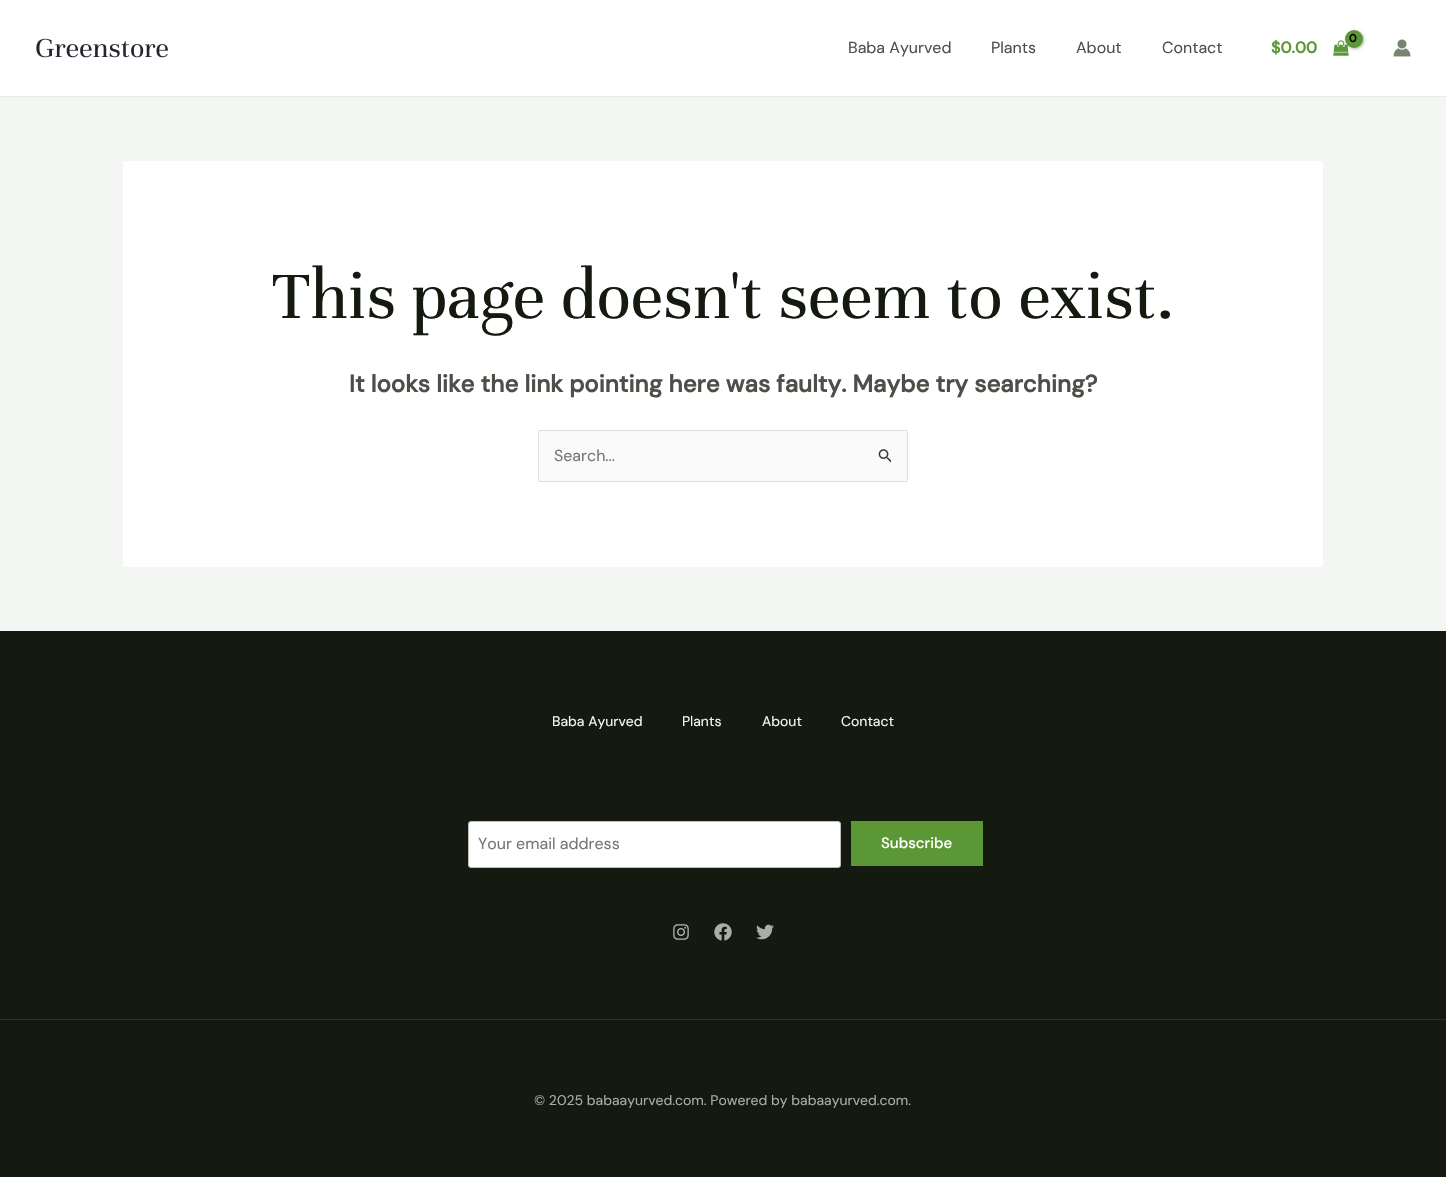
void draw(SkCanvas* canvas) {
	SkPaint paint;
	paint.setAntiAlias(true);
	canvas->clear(0xfff4f6f3);
	paint.setColor(0xffffffff);
	canvas->drawRect(SkRect::MakeXYWH(0, 0, 1446, 96), paint);
	paint.setColor(0xffeaeaea);
	canvas->drawRect(SkRect::MakeXYWH(0, 96, 1446, 1), paint);
	canvas->drawImageRect(SkImages::DeferredFromEncodedData(SkData::MakeFromFileName("img1.png")), SkRect::MakeXYWH(36, 38, 132, 20), SkSamplingOptions());
	SkFont f1(fontMgr->matchFamilyStyle("DM Sans", SkFontStyle::Normal()), 16);
	f1.setSubpixel(true);
	paint.setColor(0xff4d4f48);
	canvas->drawString("Baba Ayurved", 848, 53, f1, paint);
	canvas->drawString("Plants", 991, 53, f1, paint);
	canvas->drawString("About", 1076, 53, f1, paint);
	canvas->drawString("Contact", 1162, 53, f1, paint);
	canvas->drawImageRect(SkImages::DeferredFromEncodedData(SkData::MakeFromFileName("img2.png")), SkRect::MakeXYWH(1333, 40, 16, 16), SkSamplingOptions());
	paint.setColor(0x4d000000);
	paint.setMaskFilter(SkMaskFilter::MakeBlur(kNormal_SkBlurStyle, 1.5));
	canvas->drawRoundRect(SkRect::MakeXYWH(1346, 31, 18, 18), 9, 9, paint);
	paint.setMaskFilter(nullptr);
	paint.setColor(0xff5c9735);
	canvas->drawCircle(1354, 39, 9, paint);
	SkFont f2(fontMgr->matchFamilyStyle("DM Sans", SkFontStyle::Bold()), 11);
	f2.setSubpixel(true);
	paint.setColor(0xff000000);
	canvas->drawString("0", 1349, 42, f2, paint);
	SkFont f3(fontMgr->matchFamilyStyle("DM Sans", SkFontStyle::Bold()), 16);
	f3.setSubpixel(true);
	paint.setColor(0xff5c9735);
	canvas->drawString("$0.00", 1271, 53, f3, paint);
	canvas->drawImageRect(SkImages::DeferredFromEncodedData(SkData::MakeFromFileName("img3.png")), SkRect::MakeXYWH(1393, 39, 18, 18), SkSamplingOptions());
	paint.setColor(0xffffffff);
	canvas->drawRect(SkRect::MakeXYWH(123, 161, 1200, 406), paint);
	SkFont f4(fontMgr->matchFamilyStyle("Unna", SkFontStyle::Normal()), 72);
	f4.setSubpixel(true);
	paint.setColor(0xff141a0f);
	canvas->drawString("This page doesn't seem to exist.", 272, 318, f4, paint);
	SkFont f5(fontMgr->matchFamilyStyle("DM Sans", SkFontStyle::Bold()), 24);
	f5.setSubpixel(true);
	paint.setColor(0xff4d4f48);
	canvas->drawString("It looks like the link pointing here was faulty. Maybe try searching?", 349, 392, f5, paint);
	paint.setColor(0xfffafafa);
	canvas->drawRoundRect(SkRect::MakeXYWH(538.5, 430.5, 369, 51), 1.5, 1.5, paint);
	paint.setStroke(true);
	paint.setStrokeWidth(1);
	paint.setColor(0xffdddddd);
	canvas->drawRoundRect(SkRect::MakeXYWH(538.5, 430.5, 369, 51), 1.5, 1.5, paint);
	paint.setStroke(false);
	paint.setColor(0xff757575);
	canvas->drawString("Search...", 554, 461, f1, paint);
	canvas->drawImageRect(SkImages::DeferredFromEncodedData(SkData::MakeFromFileName("img4.png")), SkRect::MakeXYWH(878, 449, 13, 14), SkSamplingOptions());
	paint.setColor(0xff141a0f);
	canvas->drawRect(SkRect::MakeXYWH(0, 631, 1446, 546), paint);
	SkFont f6(fontMgr->matchFamilyStyle("DM Sans", SkFontStyle::Normal()), 14);
	f6.setSubpixel(true);
	paint.setColor(0xfff4f6f3);
	canvas->drawString("Baba Ayurved", 552, 726, f6, paint);
	canvas->drawString("Plants", 682, 726, f6, paint);
	canvas->drawString("About", 762, 726, f6, paint);
	canvas->drawString("Contact", 841, 726, f6, paint);
	paint.setColor(0xffffffff);
	canvas->drawRoundRect(SkRect::MakeXYWH(468.5, 821.5, 372, 46), 2.5, 2.5, paint);
	paint.setStroke(true);
	paint.setColor(0xffbdbdbd);
	canvas->drawRoundRect(SkRect::MakeXYWH(468.5, 821.5, 372, 46), 2.5, 2.5, paint);
	paint.setStroke(false);
	paint.setColor(0xff757575);
	canvas->drawString("Your email address", 478, 849, f1, paint);
	paint.setColor(0xff5c9735);
	canvas->drawRect(SkRect::MakeXYWH(851, 821, 132, 45), paint);
	SkFont f7(fontMgr->matchFamilyStyle("DM Sans", SkFontStyle(500, SkFontStyle::kNormal_Width, SkFontStyle::kUpright_Slant)), 15);
	f7.setSubpixel(true);
	paint.setColor(0xffffffff);
	canvas->drawString("Subscribe", 881, 848, f7, paint);
	canvas->drawImageRect(SkImages::DeferredFromEncodedData(SkData::MakeFromFileName("img5.png")), SkRect::MakeXYWH(673, 924, 16, 16), SkSamplingOptions());
	canvas->drawImageRect(SkImages::DeferredFromEncodedData(SkData::MakeFromFileName("img6.png")), SkRect::MakeXYWH(714, 923, 18, 18), SkSamplingOptions());
	canvas->drawImageRect(SkImages::DeferredFromEncodedData(SkData::MakeFromFileName("img7.png")), SkRect::MakeXYWH(756, 924, 18, 16), SkSamplingOptions());
	paint.setColor(0xff2c3127);
	canvas->drawRect(SkRect::MakeXYWH(0, 1019, 1446, 1), paint);
	paint.setColor(0xffaaada9);
	canvas->drawString("© 2025 babaayurved.com. Powered by babaayurved.com.", 534, 1105, f6, paint);
}
